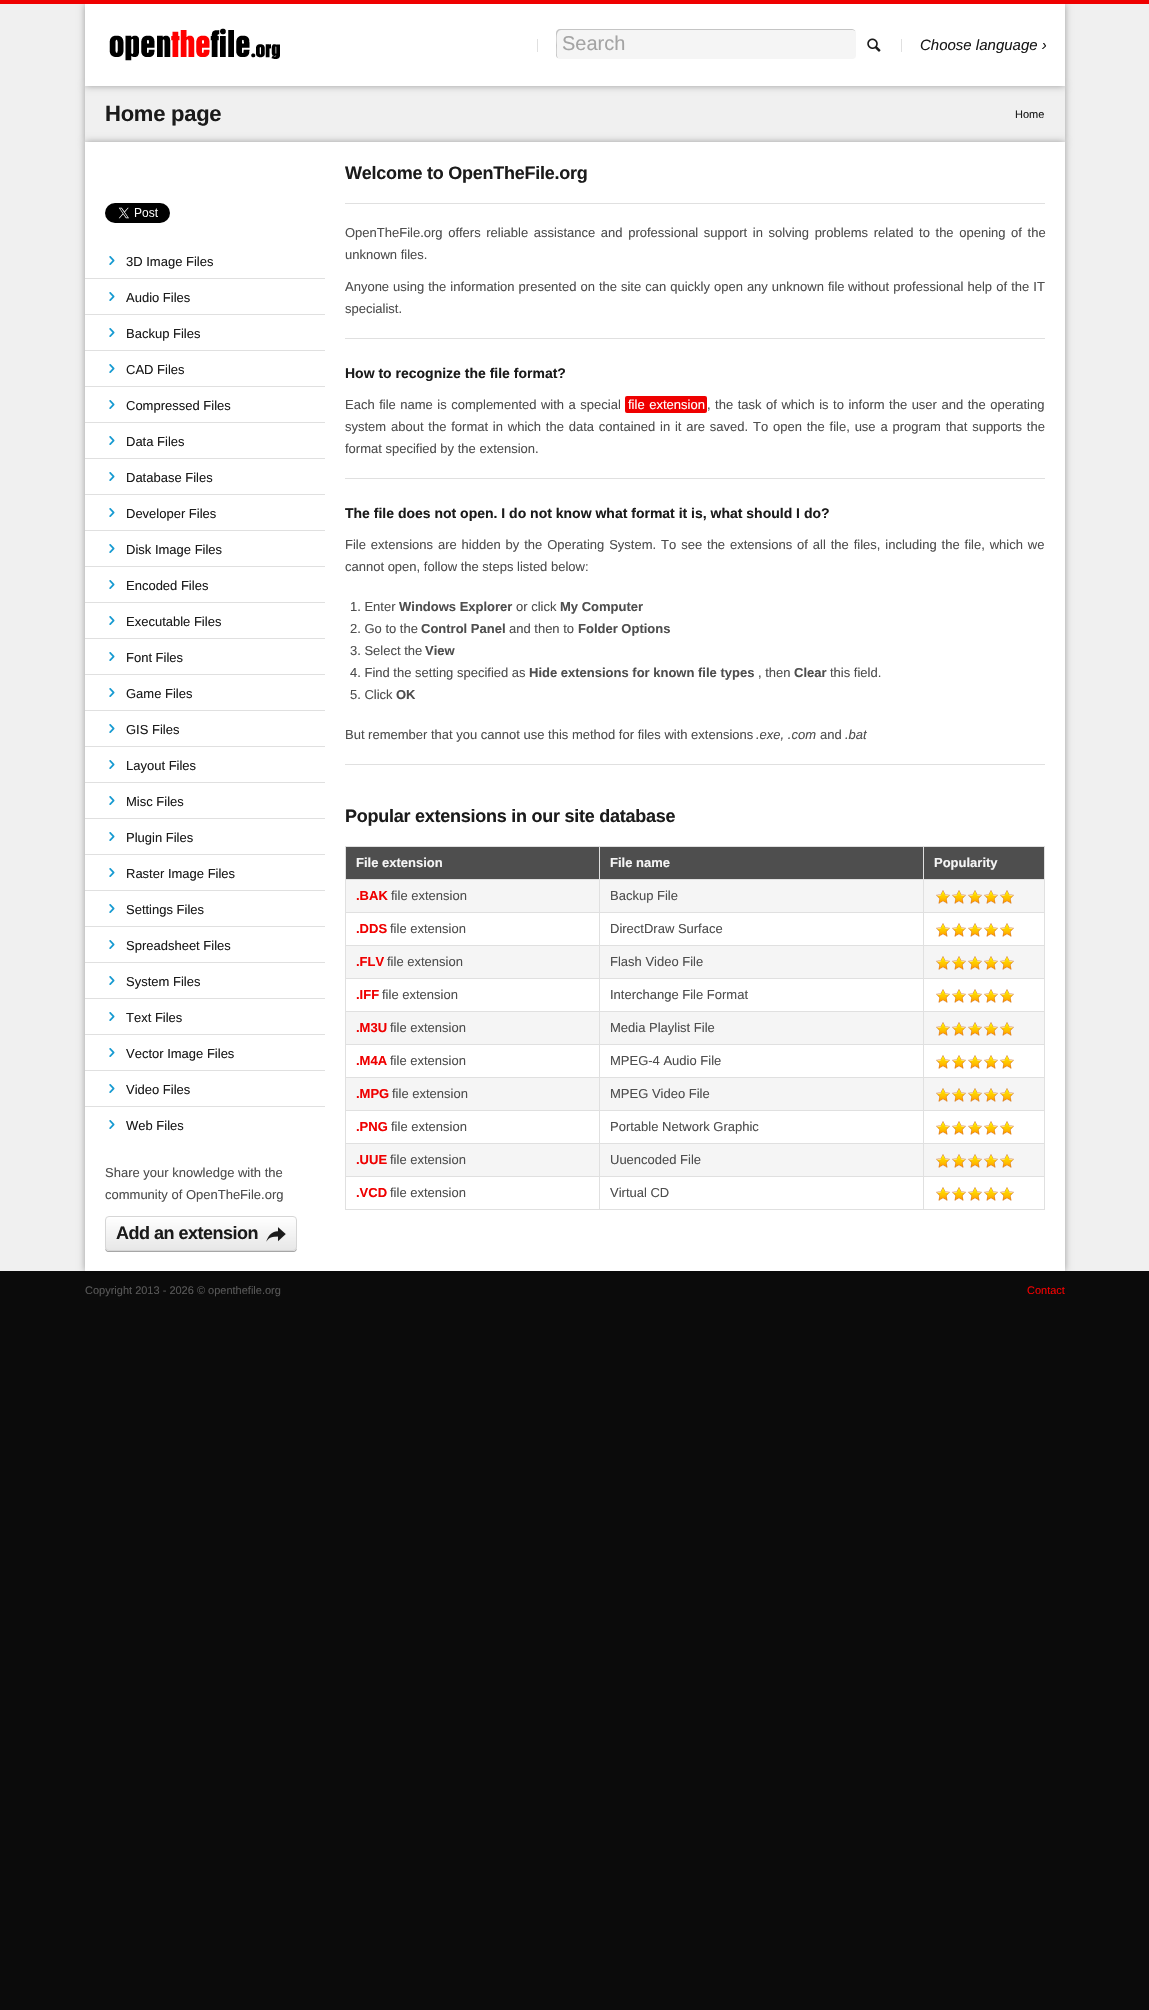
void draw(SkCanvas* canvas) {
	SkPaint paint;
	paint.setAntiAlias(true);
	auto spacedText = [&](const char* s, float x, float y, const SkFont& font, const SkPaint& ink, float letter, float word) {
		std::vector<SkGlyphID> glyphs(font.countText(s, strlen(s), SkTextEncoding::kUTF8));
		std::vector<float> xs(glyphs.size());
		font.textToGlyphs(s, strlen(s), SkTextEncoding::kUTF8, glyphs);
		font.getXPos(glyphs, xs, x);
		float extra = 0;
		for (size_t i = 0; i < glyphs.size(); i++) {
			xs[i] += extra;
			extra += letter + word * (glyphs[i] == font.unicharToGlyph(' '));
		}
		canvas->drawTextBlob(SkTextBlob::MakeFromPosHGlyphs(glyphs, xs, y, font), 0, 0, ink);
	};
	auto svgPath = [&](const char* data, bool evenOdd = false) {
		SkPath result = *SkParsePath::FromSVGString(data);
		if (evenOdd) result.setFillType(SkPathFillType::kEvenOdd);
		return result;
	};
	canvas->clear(0xff0b0b0b);
	paint.setColor(0xfff0f0f0);
	canvas->drawRect(SkRect::MakeXYWH(0, 4, 1149, 1267), paint);
	paint.setColor(0x59000000);
	paint.setMaskFilter(SkMaskFilter::MakeBlur(kNormal_SkBlurStyle, 3.5));
	canvas->drawRect(SkRect::MakeXYWH(85, 4, 980, 82), paint);
	paint.setMaskFilter(nullptr);
	paint.setColor(0xffef0000);
	canvas->drawRect(SkRect::MakeXYWH(0, 0, 1149, 4), paint);
	canvas->save();
	canvas->clipPath(svgPath("M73 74H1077V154H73ZM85 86H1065V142H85Z", true), true);
	paint.setColor(0x59000000);
	paint.setMaskFilter(SkMaskFilter::MakeBlur(kNormal_SkBlurStyle, 3.5));
	canvas->drawRect(SkRect::MakeXYWH(85, 86, 980, 56), paint);
	paint.setMaskFilter(nullptr);
	canvas->restore();
	paint.setColor(0xffffffff);
	canvas->drawRect(SkRect::MakeXYWH(85, 4, 980, 82), paint);
	canvas->drawImageRect(SkImages::DeferredFromEncodedData(SkData::MakeFromFileName("img1.png")), SkRect::MakeXYWH(109, 28, 171, 33), SkSamplingOptions());
	paint.setColor(0xffe0e0e0);
	canvas->drawRect(SkRect::MakeXYWH(537, 39, 1, 13), paint);
	paint.setColor(0xfff5f5f5);
	canvas->drawRoundRect(SkRect::MakeXYWH(556, 29, 300, 30), 4, 4, paint);
	paint.setColor(0x33000000);
	canvas->drawPath(svgPath("M561 30H853L855 31C855 30 853 29 852 29H560C558 29 556 31 556 33V55C556 56 557 58 558 58C556 56 557 48 557 45C557 42 555 30 561 30Z"), paint);
	SkFont f1(fontMgr->matchFamilyStyle("Liberation Sans", SkFontStyle::Normal()), 20);
	f1.setSubpixel(true);
	paint.setColor(0xffa4a4a4);
	canvas->drawString("Search", 562, 50, f1, paint);
	canvas->drawImageRect(SkImages::DeferredFromEncodedData(SkData::MakeFromFileName("img2.png")), SkRect::MakeXYWH(867, 38, 14, 14), SkSamplingOptions());
	paint.setColor(0xffe0e0e0);
	canvas->drawRect(SkRect::MakeXYWH(901, 39, 1, 13), paint);
	SkFont f2(fontMgr->matchFamilyStyle("Liberation Sans", SkFontStyle::Italic()), 15);
	f2.setSubpixel(true);
	paint.setColor(0xff1b1b1b);
	canvas->drawString("Choose language ›", 920, 50, f2, paint);
	SkFont f3(fontMgr->matchFamilyStyle("Liberation Sans", SkFontStyle::Bold()), 22);
	f3.setSubpixel(true);
	spacedText("Home page", 105, 121, f3, paint, -0.25, 0);
	SkFont f4(fontMgr->matchFamilyStyle("Liberation Sans", SkFontStyle::Normal()), 11);
	f4.setSubpixel(true);
	canvas->drawString("Home", 1015, 118, f4, paint);
	paint.setColor(0x59000000);
	paint.setMaskFilter(SkMaskFilter::MakeBlur(kNormal_SkBlurStyle, 3.5));
	canvas->drawRect(SkRect::MakeXYWH(85, 142, 980, 1129), paint);
	paint.setMaskFilter(nullptr);
	paint.setColor(0xffffffff);
	canvas->drawRect(SkRect::MakeXYWH(85, 142, 980, 1129), paint);
	canvas->drawImageRect(SkImages::DeferredFromEncodedData(SkData::MakeFromFileName("img3.png")), SkRect::MakeXYWH(105, 203, 65, 20), SkSamplingOptions());
	canvas->drawImageRect(SkImages::DeferredFromEncodedData(SkData::MakeFromFileName("img4.png")), SkRect::MakeXYWH(109, 256, 6, 9), SkSamplingOptions());
	SkFont f5(fontMgr->matchFamilyStyle("Liberation Sans", SkFontStyle::Normal()), 13);
	f5.setSubpixel(true);
	paint.setColor(0xff1b1b1b);
	canvas->drawString("3D Image Files", 126, 266, f5, paint);
	paint.setColor(0xffe0e0e0);
	canvas->drawRect(SkRect::MakeXYWH(85, 278, 240, 1), paint);
	canvas->drawImageRect(SkImages::DeferredFromEncodedData(SkData::MakeFromFileName("img4.png")), SkRect::MakeXYWH(109, 292, 6, 9), SkSamplingOptions());
	paint.setColor(0xff1b1b1b);
	canvas->drawString("Audio Files", 126, 302, f5, paint);
	paint.setColor(0xffe0e0e0);
	canvas->drawRect(SkRect::MakeXYWH(85, 314, 240, 1), paint);
	canvas->drawImageRect(SkImages::DeferredFromEncodedData(SkData::MakeFromFileName("img4.png")), SkRect::MakeXYWH(109, 328, 6, 9), SkSamplingOptions());
	paint.setColor(0xff1b1b1b);
	canvas->drawString("Backup Files", 126, 338, f5, paint);
	paint.setColor(0xffe0e0e0);
	canvas->drawRect(SkRect::MakeXYWH(85, 350, 240, 1), paint);
	canvas->drawImageRect(SkImages::DeferredFromEncodedData(SkData::MakeFromFileName("img4.png")), SkRect::MakeXYWH(109, 364, 6, 9), SkSamplingOptions());
	paint.setColor(0xff1b1b1b);
	canvas->drawString("CAD Files", 126, 374, f5, paint);
	paint.setColor(0xffe0e0e0);
	canvas->drawRect(SkRect::MakeXYWH(85, 386, 240, 1), paint);
	canvas->drawImageRect(SkImages::DeferredFromEncodedData(SkData::MakeFromFileName("img4.png")), SkRect::MakeXYWH(109, 400, 6, 9), SkSamplingOptions());
	paint.setColor(0xff1b1b1b);
	canvas->drawString("Compressed Files", 126, 410, f5, paint);
	paint.setColor(0xffe0e0e0);
	canvas->drawRect(SkRect::MakeXYWH(85, 422, 240, 1), paint);
	canvas->drawImageRect(SkImages::DeferredFromEncodedData(SkData::MakeFromFileName("img4.png")), SkRect::MakeXYWH(109, 436, 6, 9), SkSamplingOptions());
	paint.setColor(0xff1b1b1b);
	canvas->drawString("Data Files", 126, 446, f5, paint);
	paint.setColor(0xffe0e0e0);
	canvas->drawRect(SkRect::MakeXYWH(85, 458, 240, 1), paint);
	canvas->drawImageRect(SkImages::DeferredFromEncodedData(SkData::MakeFromFileName("img4.png")), SkRect::MakeXYWH(109, 472, 6, 9), SkSamplingOptions());
	paint.setColor(0xff1b1b1b);
	canvas->drawString("Database Files", 126, 482, f5, paint);
	paint.setColor(0xffe0e0e0);
	canvas->drawRect(SkRect::MakeXYWH(85, 494, 240, 1), paint);
	canvas->drawImageRect(SkImages::DeferredFromEncodedData(SkData::MakeFromFileName("img4.png")), SkRect::MakeXYWH(109, 508, 6, 9), SkSamplingOptions());
	paint.setColor(0xff1b1b1b);
	canvas->drawString("Developer Files", 126, 518, f5, paint);
	paint.setColor(0xffe0e0e0);
	canvas->drawRect(SkRect::MakeXYWH(85, 530, 240, 1), paint);
	canvas->drawImageRect(SkImages::DeferredFromEncodedData(SkData::MakeFromFileName("img4.png")), SkRect::MakeXYWH(109, 544, 6, 9), SkSamplingOptions());
	paint.setColor(0xff1b1b1b);
	canvas->drawString("Disk Image Files", 126, 554, f5, paint);
	paint.setColor(0xffe0e0e0);
	canvas->drawRect(SkRect::MakeXYWH(85, 566, 240, 1), paint);
	canvas->drawImageRect(SkImages::DeferredFromEncodedData(SkData::MakeFromFileName("img4.png")), SkRect::MakeXYWH(109, 580, 6, 9), SkSamplingOptions());
	paint.setColor(0xff1b1b1b);
	canvas->drawString("Encoded Files", 126, 590, f5, paint);
	paint.setColor(0xffe0e0e0);
	canvas->drawRect(SkRect::MakeXYWH(85, 602, 240, 1), paint);
	canvas->drawImageRect(SkImages::DeferredFromEncodedData(SkData::MakeFromFileName("img4.png")), SkRect::MakeXYWH(109, 616, 6, 9), SkSamplingOptions());
	paint.setColor(0xff1b1b1b);
	canvas->drawString("Executable Files", 126, 626, f5, paint);
	paint.setColor(0xffe0e0e0);
	canvas->drawRect(SkRect::MakeXYWH(85, 638, 240, 1), paint);
	canvas->drawImageRect(SkImages::DeferredFromEncodedData(SkData::MakeFromFileName("img4.png")), SkRect::MakeXYWH(109, 652, 6, 9), SkSamplingOptions());
	paint.setColor(0xff1b1b1b);
	canvas->drawString("Font Files", 126, 662, f5, paint);
	paint.setColor(0xffe0e0e0);
	canvas->drawRect(SkRect::MakeXYWH(85, 674, 240, 1), paint);
	canvas->drawImageRect(SkImages::DeferredFromEncodedData(SkData::MakeFromFileName("img4.png")), SkRect::MakeXYWH(109, 688, 6, 9), SkSamplingOptions());
	paint.setColor(0xff1b1b1b);
	canvas->drawString("Game Files", 126, 698, f5, paint);
	paint.setColor(0xffe0e0e0);
	canvas->drawRect(SkRect::MakeXYWH(85, 710, 240, 1), paint);
	canvas->drawImageRect(SkImages::DeferredFromEncodedData(SkData::MakeFromFileName("img4.png")), SkRect::MakeXYWH(109, 724, 6, 9), SkSamplingOptions());
	paint.setColor(0xff1b1b1b);
	canvas->drawString("GIS Files", 126, 734, f5, paint);
	paint.setColor(0xffe0e0e0);
	canvas->drawRect(SkRect::MakeXYWH(85, 746, 240, 1), paint);
	canvas->drawImageRect(SkImages::DeferredFromEncodedData(SkData::MakeFromFileName("img4.png")), SkRect::MakeXYWH(109, 760, 6, 9), SkSamplingOptions());
	paint.setColor(0xff1b1b1b);
	canvas->drawString("Layout Files", 126, 770, f5, paint);
	paint.setColor(0xffe0e0e0);
	canvas->drawRect(SkRect::MakeXYWH(85, 782, 240, 1), paint);
	canvas->drawImageRect(SkImages::DeferredFromEncodedData(SkData::MakeFromFileName("img4.png")), SkRect::MakeXYWH(109, 796, 6, 9), SkSamplingOptions());
	paint.setColor(0xff1b1b1b);
	canvas->drawString("Misc Files", 126, 806, f5, paint);
	paint.setColor(0xffe0e0e0);
	canvas->drawRect(SkRect::MakeXYWH(85, 818, 240, 1), paint);
	canvas->drawImageRect(SkImages::DeferredFromEncodedData(SkData::MakeFromFileName("img4.png")), SkRect::MakeXYWH(109, 832, 6, 9), SkSamplingOptions());
	paint.setColor(0xff1b1b1b);
	canvas->drawString("Plugin Files", 126, 842, f5, paint);
	paint.setColor(0xffe0e0e0);
	canvas->drawRect(SkRect::MakeXYWH(85, 854, 240, 1), paint);
	canvas->drawImageRect(SkImages::DeferredFromEncodedData(SkData::MakeFromFileName("img4.png")), SkRect::MakeXYWH(109, 868, 6, 9), SkSamplingOptions());
	paint.setColor(0xff1b1b1b);
	canvas->drawString("Raster Image Files", 126, 878, f5, paint);
	paint.setColor(0xffe0e0e0);
	canvas->drawRect(SkRect::MakeXYWH(85, 890, 240, 1), paint);
	canvas->drawImageRect(SkImages::DeferredFromEncodedData(SkData::MakeFromFileName("img4.png")), SkRect::MakeXYWH(109, 904, 6, 9), SkSamplingOptions());
	paint.setColor(0xff1b1b1b);
	canvas->drawString("Settings Files", 126, 914, f5, paint);
	paint.setColor(0xffe0e0e0);
	canvas->drawRect(SkRect::MakeXYWH(85, 926, 240, 1), paint);
	canvas->drawImageRect(SkImages::DeferredFromEncodedData(SkData::MakeFromFileName("img4.png")), SkRect::MakeXYWH(109, 940, 6, 9), SkSamplingOptions());
	paint.setColor(0xff1b1b1b);
	canvas->drawString("Spreadsheet Files", 126, 950, f5, paint);
	paint.setColor(0xffe0e0e0);
	canvas->drawRect(SkRect::MakeXYWH(85, 962, 240, 1), paint);
	canvas->drawImageRect(SkImages::DeferredFromEncodedData(SkData::MakeFromFileName("img4.png")), SkRect::MakeXYWH(109, 976, 6, 9), SkSamplingOptions());
	paint.setColor(0xff1b1b1b);
	canvas->drawString("System Files", 126, 986, f5, paint);
	paint.setColor(0xffe0e0e0);
	canvas->drawRect(SkRect::MakeXYWH(85, 998, 240, 1), paint);
	canvas->drawImageRect(SkImages::DeferredFromEncodedData(SkData::MakeFromFileName("img4.png")), SkRect::MakeXYWH(109, 1012, 6, 9), SkSamplingOptions());
	paint.setColor(0xff1b1b1b);
	canvas->drawString("Text Files", 126, 1022, f5, paint);
	paint.setColor(0xffe0e0e0);
	canvas->drawRect(SkRect::MakeXYWH(85, 1034, 240, 1), paint);
	canvas->drawImageRect(SkImages::DeferredFromEncodedData(SkData::MakeFromFileName("img4.png")), SkRect::MakeXYWH(109, 1048, 6, 9), SkSamplingOptions());
	paint.setColor(0xff1b1b1b);
	canvas->drawString("Vector Image Files", 126, 1058, f5, paint);
	paint.setColor(0xffe0e0e0);
	canvas->drawRect(SkRect::MakeXYWH(85, 1070, 240, 1), paint);
	canvas->drawImageRect(SkImages::DeferredFromEncodedData(SkData::MakeFromFileName("img4.png")), SkRect::MakeXYWH(109, 1084, 6, 9), SkSamplingOptions());
	paint.setColor(0xff1b1b1b);
	canvas->drawString("Video Files", 126, 1094, f5, paint);
	paint.setColor(0xffe0e0e0);
	canvas->drawRect(SkRect::MakeXYWH(85, 1106, 240, 1), paint);
	canvas->drawImageRect(SkImages::DeferredFromEncodedData(SkData::MakeFromFileName("img4.png")), SkRect::MakeXYWH(109, 1120, 6, 9), SkSamplingOptions());
	paint.setColor(0xff1b1b1b);
	canvas->drawString("Web Files", 126, 1130, f5, paint);
	paint.setColor(0xff4e4e4e);
	canvas->drawString("Share your knowledge with the", 105, 1177, f5, paint);
	canvas->drawString("community of OpenTheFile.org", 105, 1199, f5, paint);
	paint.setColor(0xffa6a6a6);
	canvas->drawPath(svgPath("M105 1247C105 1250 106 1252 109 1252H293C296 1252 297 1250 297 1247C297 1249 295 1251 293 1251H109C107 1251 105 1249 105 1247Z"), paint);
	canvas->save();
	canvas->clipPath(svgPath("M109 1216H293C295 1216 297 1218 297 1220V1247C297 1249 295 1251 293 1251H109C107 1251 105 1249 105 1247V1220C105 1218 107 1216 109 1216Z"), true);
	{
		const SkColor colors[] = {0xffffffff, 0xffe7e7e7};
		const float stops[] = {0, 1};
		const SkPoint ends[] = {{201, 1217}, {201, 1250}};
		paint.setShader(SkGradientShader::MakeLinear(ends, colors, stops, 2, SkTileMode::kClamp));
		paint.setAlpha(255);
	}
	canvas->drawRect(SkRect::MakeXYWH(105, 1217, 192, 33), paint);
	canvas->restore();
	paint.setStroke(true);
	paint.setStrokeWidth(1);
	paint.setShader(nullptr);
	paint.setColor(0xffd6d6d6);
	canvas->drawRoundRect(SkRect::MakeXYWH(105.5, 1216.5, 191, 34), 3.5, 3.5, paint);
	SkFont f6(fontMgr->matchFamilyStyle("Liberation Sans", SkFontStyle::Bold()), 18);
	f6.setSubpixel(true);
	paint.setStroke(false);
	paint.setColor(0xff1b1b1b);
	spacedText("Add an extension", 116, 1239, f6, paint, -0.5, 0);
	canvas->drawImageRect(SkImages::DeferredFromEncodedData(SkData::MakeFromFileName("img5.png")), SkRect::MakeXYWH(266, 1227, 20, 15), SkSamplingOptions());
	spacedText("Welcome to OpenTheFile.org", 345, 179, f6, paint, -0.25, 0);
	paint.setColor(0xffe0e0e0);
	canvas->drawRect(SkRect::MakeXYWH(345, 203, 700, 1), paint);
	paint.setColor(0xff4e4e4e);
	spacedText("OpenTheFile.org offers reliable assistance and professional support in solving problems related to the opening of the", 345, 237, f5, paint, 0, 2);
	canvas->drawString("unknown files.", 345, 259, f5, paint);
	spacedText("Anyone using the information presented on the site can quickly open any unknown file", 345, 291, f5, paint, 0, 0.4);
	spacedText("without professional help of the IT", 848, 291, f5, paint, 0, 0.5);
	canvas->drawString("specialist.", 345, 313, f5, paint);
	paint.setColor(0xffe0e0e0);
	canvas->drawRect(SkRect::MakeXYWH(345, 338, 700, 1), paint);
	SkFont f7(fontMgr->matchFamilyStyle("Liberation Sans", SkFontStyle::Bold()), 14);
	f7.setSubpixel(true);
	paint.setColor(0xff1b1b1b);
	canvas->drawString("How to recognize the file format?", 345, 378, f7, paint);
	paint.setColor(0xff4e4e4e);
	spacedText("Each file name is complemented with a special", 345, 409, f5, paint, 0, 0.9);
	paint.setColor(0xffef0000);
	canvas->drawRoundRect(SkRect::MakeXYWH(625, 396, 82, 17), 2, 2, paint);
	paint.setColor(0xffffffff);
	spacedText("file extension", 628, 409, f5, paint, 0, 1);
	paint.setColor(0xff4e4e4e);
	spacedText(", the task of which is to inform the user and the operating", 707, 409, f5, paint, 0, 0.9);
	spacedText("system about the format in which the data contained in it are saved. To open the file, use a program that supports the", 345, 431, f5, paint, 0, 1.2);
	canvas->drawString("format specified by the extension.", 345, 453, f5, paint);
	paint.setColor(0xffe0e0e0);
	canvas->drawRect(SkRect::MakeXYWH(345, 478, 700, 1), paint);
	paint.setColor(0xff1b1b1b);
	canvas->drawString("The file does not open. I do not know what format it is, what should I do?", 345, 518, f7, paint);
	paint.setColor(0xff4e4e4e);
	spacedText("File extensions are hidden by the Operating System. To see the extensions of all the files, including the file, which we", 345, 549, f5, paint, 0, 1.3);
	canvas->drawString("cannot open, follow the steps listed below:", 345, 571, f5, paint);
	canvas->drawString("1. Enter", 350, 611, f5, paint);
	SkFont f8(fontMgr->matchFamilyStyle("Liberation Sans", SkFontStyle::Bold()), 13);
	f8.setSubpixel(true);
	canvas->drawString("Windows Explorer", 399, 611, f8, paint);
	canvas->drawString("or click", 516, 611, f5, paint);
	canvas->drawString("My Computer", 560, 611, f8, paint);
	canvas->drawString("2. Go to the", 350, 633, f5, paint);
	canvas->drawString("Control Panel", 421, 633, f8, paint);
	canvas->drawString("and then to", 509, 633, f5, paint);
	canvas->drawString("Folder Options", 578, 633, f8, paint);
	canvas->drawString("3. Select the", 350, 655, f5, paint);
	canvas->drawString("View", 425, 655, f8, paint);
	canvas->drawString("4. Find the setting specified as", 350, 677, f5, paint);
	canvas->drawString("Hide extensions for known file types", 529, 677, f8, paint);
	canvas->drawString(", then", 758, 677, f5, paint);
	canvas->drawString("Clear", 794, 677, f8, paint);
	canvas->drawString("this field.", 830, 677, f5, paint);
	canvas->drawString("5. Click", 350, 699, f5, paint);
	canvas->drawString("OK", 396, 699, f8, paint);
	canvas->drawString("But remember that you cannot use this method for files with extensions", 345, 739, f5, paint);
	SkFont f9(fontMgr->matchFamilyStyle("Liberation Sans", SkFontStyle::Italic()), 13);
	f9.setSubpixel(true);
	canvas->drawString(".exe, .com", 756, 739, f9, paint);
	canvas->drawString("and", 820, 739, f5, paint);
	canvas->drawString(".bat", 845, 739, f9, paint);
	paint.setColor(0xffe0e0e0);
	canvas->drawRect(SkRect::MakeXYWH(345, 764, 700, 1), paint);
	paint.setColor(0xff1b1b1b);
	spacedText("Popular extensions in our site database", 345, 822, f6, paint, -0.25, 0);
	paint.setColor(0xff4e4e4e);
	canvas->drawRect(SkRect::MakeXYWH(346, 847, 698, 32), paint);
	paint.setColor(0xffe0e0e0);
	canvas->drawRect(SkRect::MakeXYWH(923, 846, 122, 1), paint);
	canvas->drawRect(SkRect::MakeXYWH(923, 879, 122, 1), paint);
	paint.setColor(0xfff5f5f5);
	canvas->drawRect(SkRect::MakeXYWH(346, 880, 698, 32), paint);
	paint.setColor(0xffe0e0e0);
	canvas->drawRect(SkRect::MakeXYWH(923, 912, 122, 1), paint);
	canvas->drawRect(SkRect::MakeXYWH(923, 945, 122, 1), paint);
	paint.setColor(0xfff5f5f5);
	canvas->drawRect(SkRect::MakeXYWH(346, 946, 698, 32), paint);
	paint.setColor(0xffe0e0e0);
	canvas->drawRect(SkRect::MakeXYWH(923, 978, 122, 1), paint);
	canvas->drawRect(SkRect::MakeXYWH(923, 1011, 122, 1), paint);
	paint.setColor(0xfff5f5f5);
	canvas->drawRect(SkRect::MakeXYWH(346, 1012, 698, 32), paint);
	paint.setColor(0xffe0e0e0);
	canvas->drawRect(SkRect::MakeXYWH(923, 1044, 122, 1), paint);
	canvas->drawRect(SkRect::MakeXYWH(923, 1077, 122, 1), paint);
	paint.setColor(0xfff5f5f5);
	canvas->drawRect(SkRect::MakeXYWH(346, 1078, 698, 32), paint);
	paint.setColor(0xffe0e0e0);
	canvas->drawRect(SkRect::MakeXYWH(923, 1110, 122, 1), paint);
	canvas->drawRect(SkRect::MakeXYWH(923, 1143, 122, 1), paint);
	paint.setColor(0xfff5f5f5);
	canvas->drawRect(SkRect::MakeXYWH(346, 1144, 698, 32), paint);
	paint.setColor(0xffe0e0e0);
	canvas->drawRect(SkRect::MakeXYWH(923, 1176, 122, 1), paint);
	canvas->drawRect(SkRect::MakeXYWH(1044, 1176, 1, 34), paint);
	canvas->drawRect(SkRect::MakeXYWH(923, 1209, 122, 1), paint);
	canvas->drawRect(SkRect::MakeXYWH(923, 1176, 1, 34), paint);
	canvas->drawRect(SkRect::MakeXYWH(599, 1176, 325, 1), paint);
	canvas->drawRect(SkRect::MakeXYWH(923, 1143, 1, 34), paint);
	canvas->drawRect(SkRect::MakeXYWH(599, 1143, 325, 1), paint);
	canvas->drawRect(SkRect::MakeXYWH(923, 1110, 1, 34), paint);
	canvas->drawRect(SkRect::MakeXYWH(599, 1110, 325, 1), paint);
	canvas->drawRect(SkRect::MakeXYWH(923, 1077, 1, 34), paint);
	canvas->drawRect(SkRect::MakeXYWH(599, 1077, 325, 1), paint);
	canvas->drawRect(SkRect::MakeXYWH(923, 1044, 1, 34), paint);
	canvas->drawRect(SkRect::MakeXYWH(599, 1044, 325, 1), paint);
	canvas->drawRect(SkRect::MakeXYWH(923, 1011, 1, 34), paint);
	canvas->drawRect(SkRect::MakeXYWH(599, 1011, 325, 1), paint);
	canvas->drawRect(SkRect::MakeXYWH(923, 978, 1, 34), paint);
	canvas->drawRect(SkRect::MakeXYWH(599, 978, 325, 1), paint);
	canvas->drawRect(SkRect::MakeXYWH(923, 945, 1, 34), paint);
	canvas->drawRect(SkRect::MakeXYWH(599, 945, 325, 1), paint);
	canvas->drawRect(SkRect::MakeXYWH(923, 912, 1, 34), paint);
	canvas->drawRect(SkRect::MakeXYWH(599, 912, 325, 1), paint);
	canvas->drawRect(SkRect::MakeXYWH(923, 879, 1, 34), paint);
	canvas->drawRect(SkRect::MakeXYWH(599, 879, 325, 1), paint);
	canvas->drawRect(SkRect::MakeXYWH(923, 846, 1, 34), paint);
	canvas->drawRect(SkRect::MakeXYWH(599, 846, 325, 1), paint);
	canvas->drawRect(SkRect::MakeXYWH(599, 1209, 325, 1), paint);
	canvas->drawRect(SkRect::MakeXYWH(599, 1176, 1, 34), paint);
	canvas->drawRect(SkRect::MakeXYWH(345, 1176, 255, 1), paint);
	canvas->drawRect(SkRect::MakeXYWH(599, 1143, 1, 34), paint);
	canvas->drawRect(SkRect::MakeXYWH(345, 1143, 255, 1), paint);
	canvas->drawRect(SkRect::MakeXYWH(599, 1110, 1, 34), paint);
	canvas->drawRect(SkRect::MakeXYWH(345, 1110, 255, 1), paint);
	canvas->drawRect(SkRect::MakeXYWH(599, 1077, 1, 34), paint);
	canvas->drawRect(SkRect::MakeXYWH(345, 1077, 255, 1), paint);
	canvas->drawRect(SkRect::MakeXYWH(599, 1044, 1, 34), paint);
	canvas->drawRect(SkRect::MakeXYWH(345, 1044, 255, 1), paint);
	canvas->drawRect(SkRect::MakeXYWH(599, 1011, 1, 34), paint);
	canvas->drawRect(SkRect::MakeXYWH(345, 1011, 255, 1), paint);
	canvas->drawRect(SkRect::MakeXYWH(599, 978, 1, 34), paint);
	canvas->drawRect(SkRect::MakeXYWH(345, 978, 255, 1), paint);
	canvas->drawRect(SkRect::MakeXYWH(599, 945, 1, 34), paint);
	canvas->drawRect(SkRect::MakeXYWH(345, 945, 255, 1), paint);
	canvas->drawRect(SkRect::MakeXYWH(599, 912, 1, 34), paint);
	canvas->drawRect(SkRect::MakeXYWH(345, 912, 255, 1), paint);
	canvas->drawRect(SkRect::MakeXYWH(599, 879, 1, 34), paint);
	canvas->drawRect(SkRect::MakeXYWH(345, 879, 255, 1), paint);
	canvas->drawRect(SkRect::MakeXYWH(599, 846, 1, 34), paint);
	canvas->drawRect(SkRect::MakeXYWH(345, 846, 255, 1), paint);
	canvas->drawRect(SkRect::MakeXYWH(345, 1209, 255, 1), paint);
	canvas->drawRect(SkRect::MakeXYWH(345, 1176, 1, 34), paint);
	canvas->drawRect(SkRect::MakeXYWH(345, 1143, 1, 34), paint);
	canvas->drawRect(SkRect::MakeXYWH(345, 1110, 1, 34), paint);
	canvas->drawRect(SkRect::MakeXYWH(345, 1077, 1, 34), paint);
	canvas->drawRect(SkRect::MakeXYWH(345, 1044, 1, 34), paint);
	canvas->drawRect(SkRect::MakeXYWH(345, 1011, 1, 34), paint);
	canvas->drawRect(SkRect::MakeXYWH(345, 978, 1, 34), paint);
	canvas->drawRect(SkRect::MakeXYWH(345, 945, 1, 34), paint);
	canvas->drawRect(SkRect::MakeXYWH(345, 912, 1, 34), paint);
	canvas->drawRect(SkRect::MakeXYWH(345, 879, 1, 34), paint);
	canvas->drawRect(SkRect::MakeXYWH(345, 846, 1, 34), paint);
	paint.setColor(0xfff5f5f5);
	canvas->drawString("File extension", 356, 867, f8, paint);
	canvas->drawString("File name", 610, 867, f8, paint);
	paint.setColor(0xffe0e0e0);
	canvas->drawRect(SkRect::MakeXYWH(1044, 1143, 1, 34), paint);
	canvas->drawRect(SkRect::MakeXYWH(1044, 1110, 1, 34), paint);
	canvas->drawRect(SkRect::MakeXYWH(1044, 1077, 1, 34), paint);
	canvas->drawRect(SkRect::MakeXYWH(1044, 1044, 1, 34), paint);
	canvas->drawRect(SkRect::MakeXYWH(1044, 1011, 1, 34), paint);
	canvas->drawRect(SkRect::MakeXYWH(1044, 978, 1, 34), paint);
	canvas->drawRect(SkRect::MakeXYWH(1044, 945, 1, 34), paint);
	canvas->drawRect(SkRect::MakeXYWH(1044, 912, 1, 34), paint);
	canvas->drawRect(SkRect::MakeXYWH(1044, 879, 1, 34), paint);
	canvas->drawRect(SkRect::MakeXYWH(1044, 846, 1, 34), paint);
	paint.setColor(0xfff5f5f5);
	canvas->drawString("Popularity", 934, 867, f8, paint);
	paint.setColor(0xffef0000);
	canvas->drawString(".BAK", 356, 900, f8, paint);
	paint.setColor(0xff4e4e4e);
	canvas->drawString("file extension", 391, 900, f5, paint);
	canvas->drawString("Backup File", 610, 900, f5, paint);
	canvas->drawImageRect(SkImages::DeferredFromEncodedData(SkData::MakeFromFileName("img6.png")), SkRect::MakeXYWH(936, 890, 78, 14), SkSamplingOptions());
	paint.setColor(0xffef0000);
	canvas->drawString(".DDS", 356, 933, f8, paint);
	paint.setColor(0xff4e4e4e);
	canvas->drawString("file extension", 390, 933, f5, paint);
	canvas->drawString("DirectDraw Surface", 610, 933, f5, paint);
	canvas->drawImageRect(SkImages::DeferredFromEncodedData(SkData::MakeFromFileName("img7.png")), SkRect::MakeXYWH(936, 923, 78, 14), SkSamplingOptions());
	paint.setColor(0xffef0000);
	canvas->drawString(".FLV", 356, 966, f8, paint);
	paint.setColor(0xff4e4e4e);
	canvas->drawString("file extension", 387, 966, f5, paint);
	canvas->drawString("Flash Video File", 610, 966, f5, paint);
	canvas->drawImageRect(SkImages::DeferredFromEncodedData(SkData::MakeFromFileName("img6.png")), SkRect::MakeXYWH(936, 956, 78, 14), SkSamplingOptions());
	paint.setColor(0xffef0000);
	canvas->drawString(".IFF", 356, 999, f8, paint);
	paint.setColor(0xff4e4e4e);
	canvas->drawString("file extension", 382, 999, f5, paint);
	canvas->drawString("Interchange File Format", 610, 999, f5, paint);
	canvas->drawImageRect(SkImages::DeferredFromEncodedData(SkData::MakeFromFileName("img7.png")), SkRect::MakeXYWH(936, 989, 78, 14), SkSamplingOptions());
	paint.setColor(0xffef0000);
	canvas->drawString(".M3U", 356, 1032, f8, paint);
	paint.setColor(0xff4e4e4e);
	canvas->drawString("file extension", 390, 1032, f5, paint);
	canvas->drawString("Media Playlist File", 610, 1032, f5, paint);
	canvas->drawImageRect(SkImages::DeferredFromEncodedData(SkData::MakeFromFileName("img6.png")), SkRect::MakeXYWH(936, 1022, 78, 14), SkSamplingOptions());
	paint.setColor(0xffef0000);
	canvas->drawString(".M4A", 356, 1065, f8, paint);
	paint.setColor(0xff4e4e4e);
	canvas->drawString("file extension", 390, 1065, f5, paint);
	canvas->drawString("MPEG-4 Audio File", 610, 1065, f5, paint);
	canvas->drawImageRect(SkImages::DeferredFromEncodedData(SkData::MakeFromFileName("img7.png")), SkRect::MakeXYWH(936, 1055, 78, 14), SkSamplingOptions());
	paint.setColor(0xffef0000);
	canvas->drawString(".MPG", 356, 1098, f8, paint);
	paint.setColor(0xff4e4e4e);
	canvas->drawString("file extension", 392, 1098, f5, paint);
	canvas->drawString("MPEG Video File", 610, 1098, f5, paint);
	canvas->drawImageRect(SkImages::DeferredFromEncodedData(SkData::MakeFromFileName("img6.png")), SkRect::MakeXYWH(936, 1088, 78, 14), SkSamplingOptions());
	paint.setColor(0xffef0000);
	canvas->drawString(".PNG", 356, 1131, f8, paint);
	paint.setColor(0xff4e4e4e);
	canvas->drawString("file extension", 391, 1131, f5, paint);
	canvas->drawString("Portable Network Graphic", 610, 1131, f5, paint);
	canvas->drawImageRect(SkImages::DeferredFromEncodedData(SkData::MakeFromFileName("img7.png")), SkRect::MakeXYWH(936, 1121, 78, 14), SkSamplingOptions());
	paint.setColor(0xffef0000);
	canvas->drawString(".UUE", 356, 1164, f8, paint);
	paint.setColor(0xff4e4e4e);
	canvas->drawString("file extension", 390, 1164, f5, paint);
	canvas->drawString("Uuencoded File", 610, 1164, f5, paint);
	canvas->drawImageRect(SkImages::DeferredFromEncodedData(SkData::MakeFromFileName("img6.png")), SkRect::MakeXYWH(936, 1154, 78, 14), SkSamplingOptions());
	paint.setColor(0xffef0000);
	canvas->drawString(".VCD", 356, 1197, f8, paint);
	paint.setColor(0xff4e4e4e);
	canvas->drawString("file extension", 390, 1197, f5, paint);
	canvas->drawString("Virtual CD", 610, 1197, f5, paint);
	canvas->drawImageRect(SkImages::DeferredFromEncodedData(SkData::MakeFromFileName("img7.png")), SkRect::MakeXYWH(936, 1187, 78, 14), SkSamplingOptions());
	paint.setColor(0xff575757);
	canvas->drawString("Copyright 2013 - 2026 © openthefile.org", 85, 1294, f4, paint);
	paint.setColor(0xffef0000);
	canvas->drawString("Contact", 1027, 1294, f4, paint);
}
